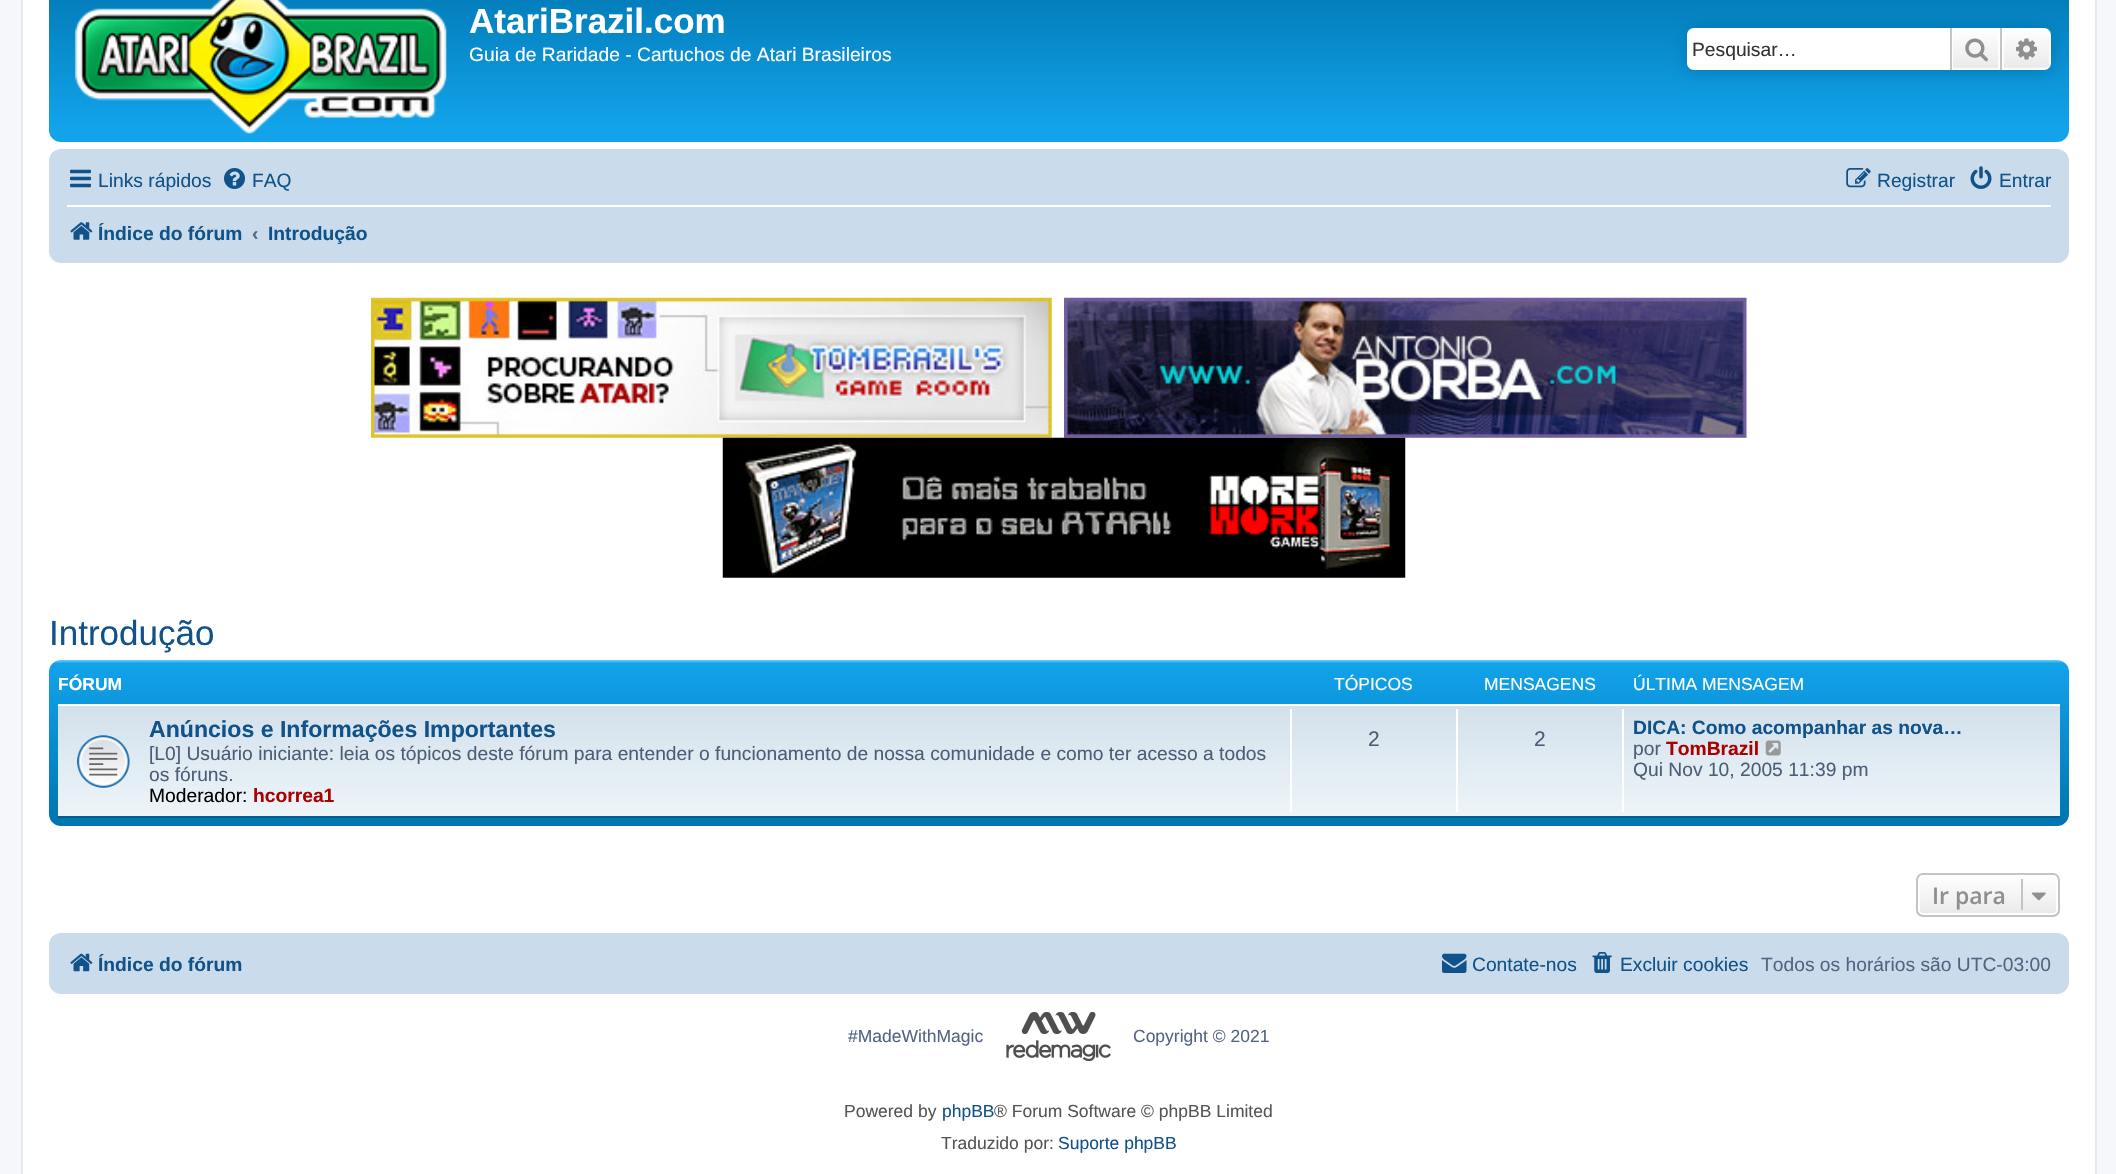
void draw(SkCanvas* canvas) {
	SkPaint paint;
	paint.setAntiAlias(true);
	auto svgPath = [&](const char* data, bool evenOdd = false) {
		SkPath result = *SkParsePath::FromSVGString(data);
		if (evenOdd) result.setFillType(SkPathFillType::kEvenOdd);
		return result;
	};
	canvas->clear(0xfff5f7fa);
	paint.setColor(0xffffffff);
	canvas->drawRect(SkRect::MakeXYWH(22, -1, 2074, 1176), paint);
	paint.setStroke(true);
	paint.setStrokeWidth(2);
	paint.setColor(0xffe6e9ed);
	canvas->drawRect(SkRect::MakeXYWH(22, -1, 2074, 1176), paint);
	paint.setStroke(false);
	{
		const SkColor colors[] = {0xff6aceff, 0xff0076b1, 0xff12a3eb, 0xff12a3eb};
		const float stops[] = {0, 0.02, 0.92, 1};
		const SkPoint ends[] = {{1059, -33}, {1059, 142}};
		paint.setShader(SkGradientShader::MakeLinear(ends, colors, stops, 4, SkTileMode::kClamp));
		paint.setAlpha(255);
	}
	canvas->drawRoundRect(SkRect::MakeXYWH(49, -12, 2020, 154), 12, 12, paint);
	canvas->drawImageRect(SkImages::DeferredFromEncodedData(SkData::MakeFromFileName("img1.png")), SkRect::MakeXYWH(75, 0, 372, 134), SkSamplingOptions());
	SkFont f1(fontMgr->matchFamilyStyle("Liberation Sans", SkFontStyle::Bold()), 35);
	f1.setSubpixel(true);
	paint.setShader(nullptr);
	paint.setColor(0xffffffff);
	canvas->drawString("AtariBrazil.com", 469, 33, f1, paint);
	SkFont f2(fontMgr->matchFamilyStyle("Liberation Sans", SkFontStyle::Normal()), 19.25);
	f2.setSubpixel(true);
	canvas->drawString("Guia de Raridade - Cartuchos de Atari Brasileiros", 469, 61, f2, paint);
	paint.setColor(0xff0075b0);
	paint.setMaskFilter(SkMaskFilter::MakeBlur(kNormal_SkBlurStyle, 9));
	canvas->drawRoundRect(SkRect::MakeXYWH(1687, 28, 364, 42), 7, 7, paint);
	paint.setMaskFilter(nullptr);
	paint.setColor(0xffffffff);
	canvas->drawPath(svgPath("M1694 28H1950V70H1694C1690 70 1687 67 1687 63V35C1687 31 1690 28 1694 28Z"), paint);
	paint.setColor(0xff333333);
	canvas->drawString("Pesquisar…", 1692, 56, f2, paint);
	{
		const SkColor colors[] = {0xffffffff, 0xffe9e9e9};
		const float stops[] = {0, 1};
		const SkPoint ends[] = {{1976, 28}, {1976, 70}};
		paint.setShader(SkGradientShader::MakeLinear(ends, colors, stops, 2, SkTileMode::kClamp));
		paint.setAlpha(255);
	}
	canvas->drawRect(SkRect::MakeXYWH(1953, 30, 45, 38), paint);
	paint.setStroke(true);
	paint.setShader(nullptr);
	paint.setColor(0xffffffff);
	canvas->drawRect(SkRect::MakeXYWH(1952, 29, 47, 40), paint);
	paint.setStroke(false);
	paint.setColor(0xffc7c3bf);
	canvas->drawRect(SkRect::MakeXYWH(2000, 28, 2, 42), paint);
	canvas->drawRect(SkRect::MakeXYWH(1950, 28, 2, 42), paint);
	canvas->drawImageRect(SkImages::DeferredFromEncodedData(SkData::MakeFromFileName("img2.png")), SkRect::MakeXYWH(1965, 38, 23, 24), SkSamplingOptions());
	{
		const SkColor colors[] = {0xffffffff, 0xffe9e9e9};
		const float stops[] = {0, 1};
		const SkPoint ends[] = {{2027, 28}, {2027, 70}};
		paint.setShader(SkGradientShader::MakeLinear(ends, colors, stops, 2, SkTileMode::kClamp));
		paint.setAlpha(255);
	}
	canvas->drawPath(svgPath("M2003 29H2044C2047.5 29 2050 31.5 2050 35V63C2050 66.5 2047.5 69 2044 69H2003Z"), paint);
	paint.setStroke(true);
	paint.setShader(nullptr);
	paint.setColor(0xffffffff);
	canvas->drawPath(svgPath("M2003 29H2044C2047.5 29 2050 31.5 2050 35V63C2050 66.5 2047.5 69 2044 69H2003Z"), paint);
	canvas->drawImageRect(SkImages::DeferredFromEncodedData(SkData::MakeFromFileName("img3.png")), SkRect::MakeXYWH(2016, 38, 21, 22), SkSamplingOptions());
	paint.setStroke(false);
	paint.setColor(0xffcadceb);
	canvas->drawRoundRect(SkRect::MakeXYWH(49, 149, 2020, 114), 12, 12, paint);
	canvas->drawImageRect(SkImages::DeferredFromEncodedData(SkData::MakeFromFileName("img4.png")), SkRect::MakeXYWH(70, 169, 21, 19), SkSamplingOptions());
	paint.setColor(0xff105289);
	canvas->drawString("Links rápidos", 98, 187, f2, paint);
	canvas->drawImageRect(SkImages::DeferredFromEncodedData(SkData::MakeFromFileName("img5.png")), SkRect::MakeXYWH(224, 168, 21, 21), SkSamplingOptions());
	canvas->drawString("FAQ", 252, 187, f2, paint);
	canvas->drawImageRect(SkImages::DeferredFromEncodedData(SkData::MakeFromFileName("img6.png")), SkRect::MakeXYWH(1846, 168, 25, 20), SkSamplingOptions());
	canvas->drawString("Registrar", 1877, 187, f2, paint);
	canvas->drawImageRect(SkImages::DeferredFromEncodedData(SkData::MakeFromFileName("img7.png")), SkRect::MakeXYWH(1970, 166, 22, 23), SkSamplingOptions());
	canvas->drawString("Entrar", 1999, 187, f2, paint);
	paint.setColor(0xffffffff);
	canvas->drawRect(SkRect::MakeXYWH(67, 205, 1984, 2), paint);
	canvas->drawImageRect(SkImages::DeferredFromEncodedData(SkData::MakeFromFileName("img8.png")), SkRect::MakeXYWH(70, 222, 23, 18), SkSamplingOptions());
	SkFont f3(fontMgr->matchFamilyStyle("Liberation Sans", SkFontStyle::Bold()), 19.25);
	f3.setSubpixel(true);
	paint.setColor(0xff105289);
	canvas->drawString("Índice do fórum", 98, 240, f3, paint);
	paint.setColor(0xff536482);
	canvas->drawString("‹", 252, 240, f3, paint);
	paint.setColor(0xff105289);
	canvas->drawString("Introdução", 268, 240, f3, paint);
	canvas->drawImageRect(SkImages::DeferredFromEncodedData(SkData::MakeFromFileName("img9.png")), SkRect::MakeXYWH(371, 297, 681, 141), SkSamplingOptions());
	canvas->drawImageRect(SkImages::DeferredFromEncodedData(SkData::MakeFromFileName("img10.png")), SkRect::MakeXYWH(1064, 297, 683, 141), SkSamplingOptions());
	canvas->drawImageRect(SkImages::DeferredFromEncodedData(SkData::MakeFromFileName("img11.png")), SkRect::MakeXYWH(722, 437, 684, 141), SkSamplingOptions());
	SkFont f4(fontMgr->matchFamilyStyle("Liberation Sans", SkFontStyle::Normal()), 35);
	f4.setSubpixel(true);
	canvas->drawString("Introdução", 49, 645, f4, paint);
	{
		const SkColor colors[] = {0xff6aceff, 0xff12a3eb, 0xff0076b1, 0xff0076b1};
		const float stops[] = {0, 0.02, 0.97, 1};
		const SkPoint ends[] = {{1059, 660}, {1059, 826}};
		paint.setShader(SkGradientShader::MakeLinear(ends, colors, stops, 4, SkTileMode::kClamp));
		paint.setAlpha(255);
	}
	canvas->drawRoundRect(SkRect::MakeXYWH(49, 660, 2020, 166), 12, 12, paint);
	SkFont f5(fontMgr->matchFamilyStyle("Liberation Sans", SkFontStyle::Bold()), 17.5);
	f5.setSubpixel(true);
	paint.setShader(nullptr);
	paint.setColor(0xffffffff);
	canvas->drawString("FÓRUM", 58, 690, f5, paint);
	SkFont f6(fontMgr->matchFamilyStyle("Liberation Sans", SkFontStyle::Normal()), 17.5);
	f6.setSubpixel(true);
	canvas->drawString("TÓPICOS", 1334, 690, f6, paint);
	canvas->drawString("MENSAGENS", 1484, 690, f6, paint);
	canvas->drawString("ÚLTIMA MENSAGEM", 1633, 690, f6, paint);
	{
		const SkColor colors[] = {0xffd2e0eb, 0xffeef5f9};
		const float stops[] = {0, 1};
		const SkPoint ends[] = {{1059, 703}, {1059, 817}};
		paint.setShader(SkGradientShader::MakeLinear(ends, colors, stops, 2, SkTileMode::kClamp));
		paint.setAlpha(255);
	}
	canvas->drawRect(SkRect::MakeXYWH(58, 706, 2002, 110), paint);
	paint.setShader(nullptr);
	paint.setColor(0xffffffff);
	canvas->drawRect(SkRect::MakeXYWH(58, 704, 2002, 2), paint);
	paint.setColor(0xff00608f);
	canvas->drawRect(SkRect::MakeXYWH(58, 816, 2002, 2), paint);
	canvas->drawImageRect(SkImages::DeferredFromEncodedData(SkData::MakeFromFileName("img12.png")), SkRect::MakeXYWH(77, 735, 53, 53), SkSamplingOptions());
	SkFont f7(fontMgr->matchFamilyStyle("Liberation Sans", SkFontStyle::Bold()), 23.1);
	f7.setSubpixel(true);
	paint.setColor(0xff105289);
	canvas->drawString("Anúncios e Informações Importantes", 149, 737, f7, paint);
	paint.setColor(0xff4c5d77);
	canvas->drawString("[L0] Usuário iniciante: leia os tópicos deste fórum para entender o funcionamento de nossa comunidade e como ter acesso a todos", 149, 760, f2, paint);
	canvas->drawString("os fóruns.", 149, 781, f2, paint);
	paint.setColor(0xff000000);
	canvas->drawString("Moderador:", 149, 802, f2, paint);
	paint.setColor(0xffaa0000);
	canvas->drawString("hcorrea1", 253, 802, f3, paint);
	paint.setColor(0xffffffff);
	canvas->drawRect(SkRect::MakeXYWH(1290, 709, 2, 103), paint);
	SkFont f8(fontMgr->matchFamilyStyle("Liberation Sans", SkFontStyle::Normal()), 21);
	f8.setSubpixel(true);
	paint.setColor(0xff4c5d77);
	canvas->drawString("2", 1368, 746, f8, paint);
	paint.setColor(0xffffffff);
	canvas->drawRect(SkRect::MakeXYWH(1456, 709, 2, 103), paint);
	paint.setColor(0xff4c5d77);
	canvas->drawString("2", 1534, 746, f8, paint);
	paint.setColor(0xffffffff);
	canvas->drawRect(SkRect::MakeXYWH(1622, 709, 2, 103), paint);
	paint.setColor(0xff105289);
	canvas->drawString("DICA: Como acompanhar as nova…", 1633, 734, f3, paint);
	paint.setColor(0xff4c5d77);
	canvas->drawString("por", 1633, 755, f2, paint);
	paint.setColor(0xffaa0000);
	canvas->drawString("TomBrazil", 1666, 755, f3, paint);
	canvas->drawImageRect(SkImages::DeferredFromEncodedData(SkData::MakeFromFileName("img13.png")), SkRect::MakeXYWH(1765, 740, 16, 16), SkSamplingOptions());
	paint.setColor(0xff4c5d77);
	canvas->drawString("Qui Nov 10, 2005 11:39 pm", 1633, 776, f2, paint);
	canvas->save();
	canvas->clipPath(svgPath("M1923 873H2053C2057 873 2060 876 2060 880V910C2060 914 2057 917 2053 917H1923C1919 917 1916 914 1916 910V880C1916 876 1919 873 1923 873Z"), true);
	{
		const SkColor colors[] = {0xffffffff, 0xffe9e9e9};
		const float stops[] = {0, 1};
		const SkPoint ends[] = {{1988, 875}, {1988, 915}};
		paint.setShader(SkGradientShader::MakeLinear(ends, colors, stops, 2, SkTileMode::kClamp));
		paint.setAlpha(255);
	}
	canvas->drawRect(SkRect::MakeXYWH(1916, 875, 144, 40), paint);
	canvas->restore();
	paint.setStroke(true);
	paint.setShader(nullptr);
	paint.setColor(0xffffffff);
	canvas->drawRoundRect(SkRect::MakeXYWH(1919, 876, 138, 38), 4, 4, paint);
	paint.setColor(0xffc7c3bf);
	canvas->drawRoundRect(SkRect::MakeXYWH(1917, 874, 142, 42), 6, 6, paint);
	SkFont f9(fontMgr->matchFamilyStyle("Open Sans", SkFontStyle(600, SkFontStyle::kNormal_Width, SkFontStyle::kUpright_Slant)), 23);
	f9.setSubpixel(true);
	paint.setStroke(false);
	paint.setColor(0xff8f8f8f);
	canvas->drawString("Ir para", 1932, 904, f9, paint);
	paint.setColor(0xffc7c3bf);
	canvas->drawRect(SkRect::MakeXYWH(2021, 879, 2, 31), paint);
	canvas->drawImageRect(SkImages::DeferredFromEncodedData(SkData::MakeFromFileName("img14.png")), SkRect::MakeXYWH(2031, 892, 15, 9), SkSamplingOptions());
	paint.setColor(0xffcadceb);
	canvas->drawRoundRect(SkRect::MakeXYWH(49, 933, 2020, 61), 12, 12, paint);
	canvas->drawImageRect(SkImages::DeferredFromEncodedData(SkData::MakeFromFileName("img15.png")), SkRect::MakeXYWH(70, 953, 23, 19), SkSamplingOptions());
	paint.setColor(0xff105289);
	canvas->drawString("Índice do fórum", 98, 971, f3, paint);
	canvas->drawImageRect(SkImages::DeferredFromEncodedData(SkData::MakeFromFileName("img16.png")), SkRect::MakeXYWH(1442, 953, 25, 20), SkSamplingOptions());
	canvas->drawString("Contate-nos", 1472, 971, f2, paint);
	canvas->drawImageRect(SkImages::DeferredFromEncodedData(SkData::MakeFromFileName("img17.png")), SkRect::MakeXYWH(1592, 952, 20, 21), SkSamplingOptions());
	canvas->drawString("Excluir cookies", 1620, 971, f2, paint);
	paint.setColor(0xff536482);
	canvas->drawString("Todos os horários são UTC-03:00", 1761, 971, f2, paint);
	canvas->drawString("#MadeWithMagic", 848, 1042, f6, paint);
	canvas->drawImageRect(SkImages::DeferredFromEncodedData(SkData::MakeFromFileName("img18.png")), SkRect::MakeXYWH(1006, 1012, 105, 49), SkSamplingOptions());
	canvas->drawString("Copyright © 2021", 1133, 1042, f6, paint);
	paint.setColor(0xff555555);
	canvas->drawString("Powered by", 844, 1117, f6, paint);
	paint.setColor(0xff105289);
	canvas->drawString("phpBB", 942, 1117, f6, paint);
	paint.setColor(0xff555555);
	canvas->drawString("® Forum Software © phpBB Limited", 994, 1117, f6, paint);
	canvas->drawString("Traduzido por:", 941, 1149, f6, paint);
	paint.setColor(0xff105289);
	canvas->drawString("Suporte phpBB", 1058, 1149, f6, paint);
}
